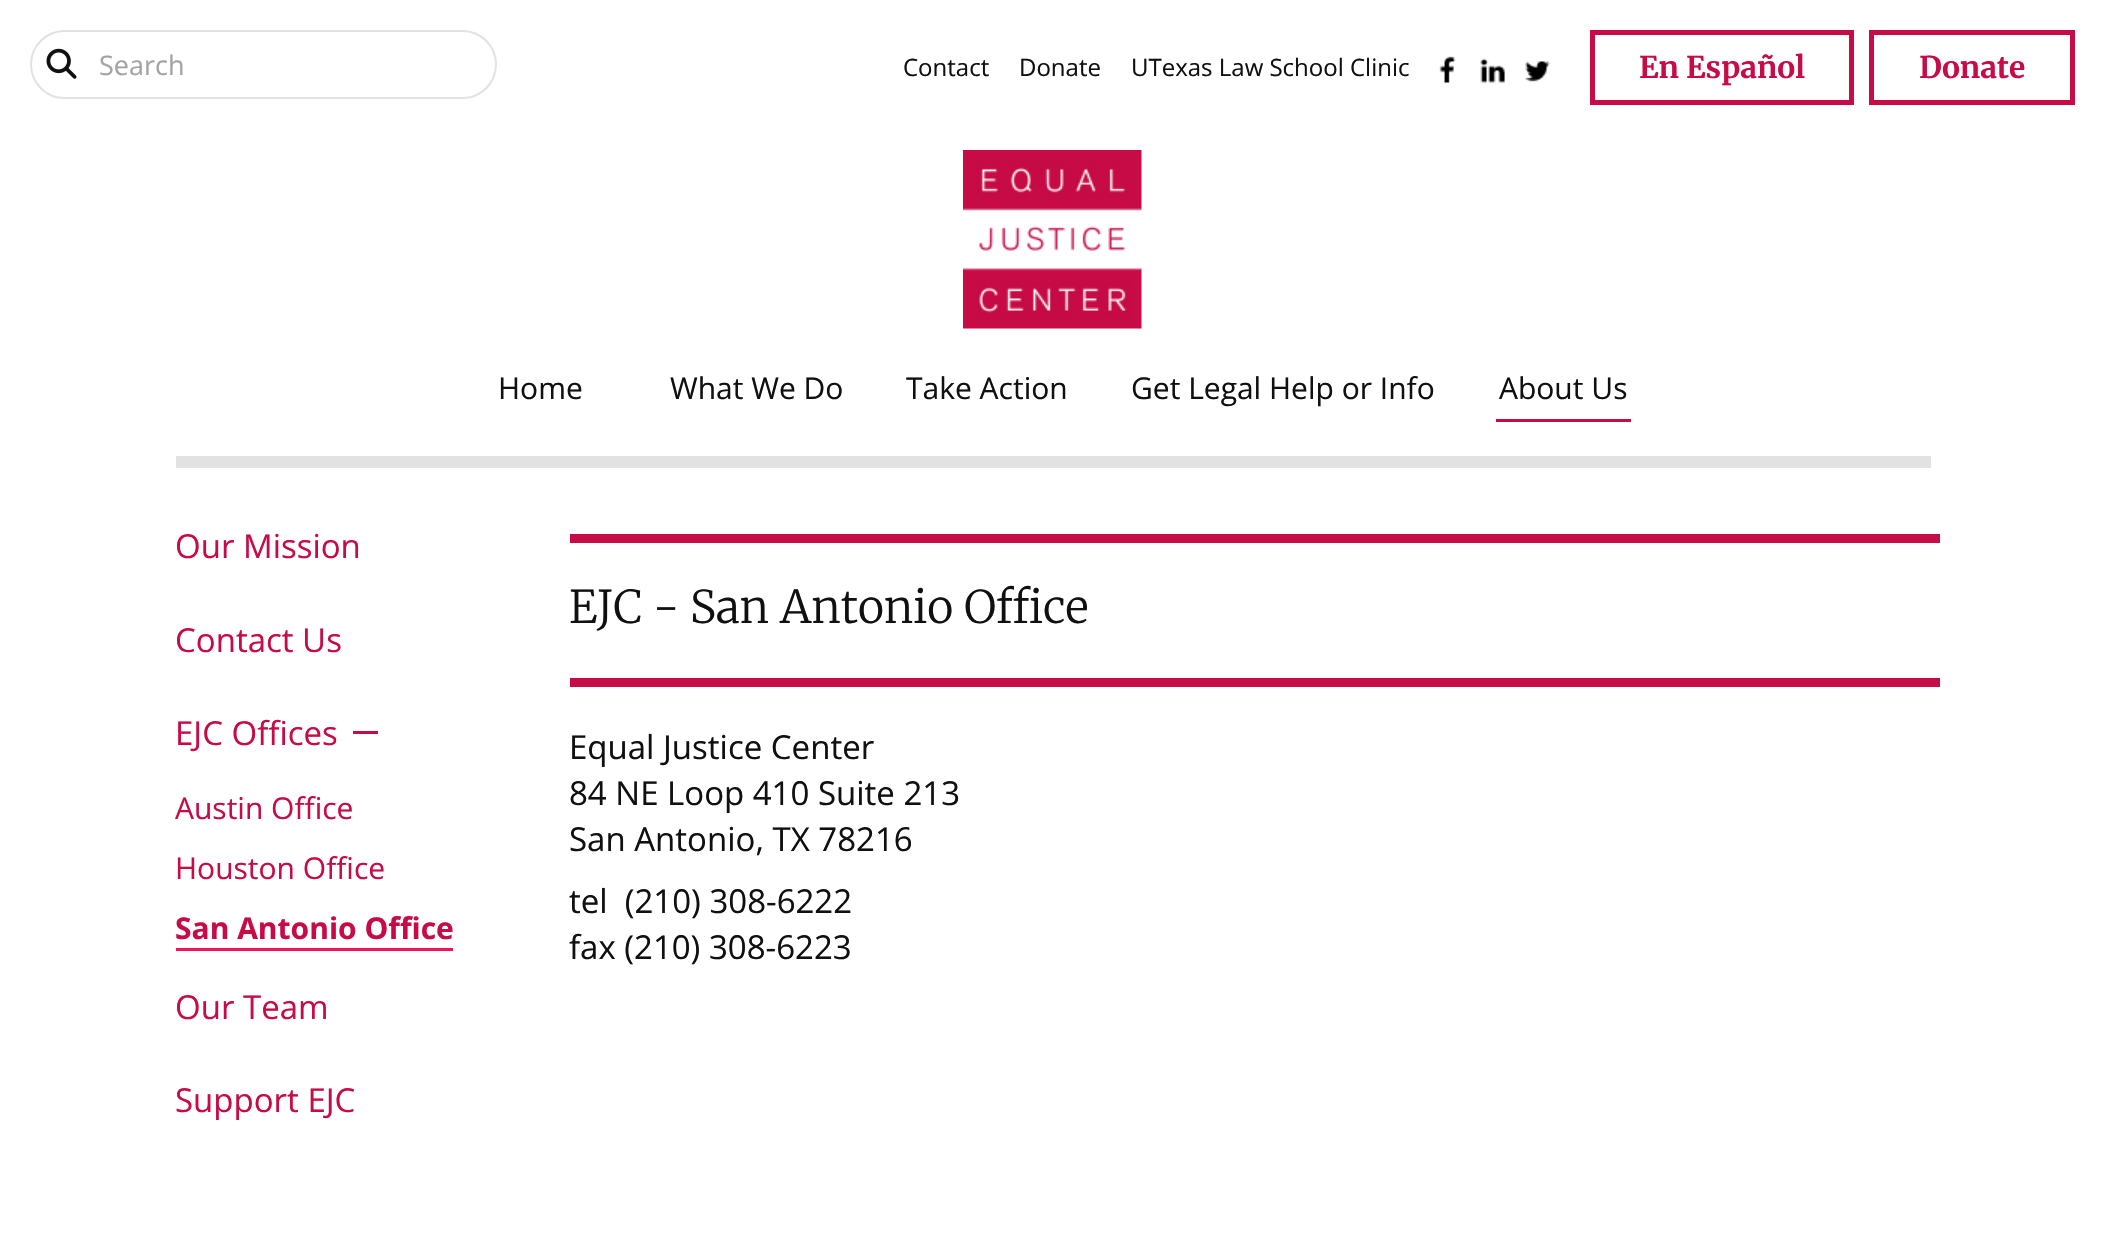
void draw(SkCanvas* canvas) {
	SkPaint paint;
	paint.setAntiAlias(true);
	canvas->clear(0xffffffff);
	paint.setStroke(true);
	paint.setStrokeWidth(2);
	paint.setColor(0xffe2e2e2);
	canvas->drawRoundRect(SkRect::MakeXYWH(31, 31, 465, 67), 33.5, 33.5, paint);
	canvas->drawImageRect(SkImages::DeferredFromEncodedData(SkData::MakeFromFileName("img1.png")), SkRect::MakeXYWH(46, 48, 31, 31), SkSamplingOptions());
	SkFont f1(fontMgr->matchFamilyStyle("Open Sans", SkFontStyle::Normal()), 27);
	f1.setSubpixel(true);
	paint.setStroke(false);
	paint.setColor(0xffa3a3a3);
	canvas->drawString("Search", 99, 75, f1, paint);
	SkFont f2(fontMgr->matchFamilyStyle("Open Sans", SkFontStyle::Normal()), 24);
	f2.setSubpixel(true);
	paint.setColor(0xff101010);
	canvas->drawString("Contact", 903, 76, f2, paint);
	canvas->drawString("Donate", 1019, 76, f2, paint);
	canvas->drawString("UTexas Law School Clinic", 1131, 76, f2, paint);
	canvas->drawImageRect(SkImages::DeferredFromEncodedData(SkData::MakeFromFileName("img2.png")), SkRect::MakeXYWH(1439, 56, 17, 27), SkSamplingOptions());
	canvas->drawImageRect(SkImages::DeferredFromEncodedData(SkData::MakeFromFileName("img3.png")), SkRect::MakeXYWH(1480, 58, 25, 25), SkSamplingOptions());
	canvas->drawImageRect(SkImages::DeferredFromEncodedData(SkData::MakeFromFileName("img4.png")), SkRect::MakeXYWH(1525, 61, 25, 21), SkSamplingOptions());
	paint.setStroke(true);
	paint.setStrokeWidth(5);
	paint.setColor(0xffc70b46);
	canvas->drawRect(SkRect::MakeXYWH(1592.5, 32.5, 259, 70), paint);
	SkFont f3(fontMgr->matchFamilyStyle("Merriweather", SkFontStyle::Bold()), 30);
	f3.setSubpixel(true);
	paint.setStroke(false);
	canvas->drawString("En Español", 1639, 78, f3, paint);
	paint.setStroke(true);
	canvas->drawRect(SkRect::MakeXYWH(1871.5, 32.5, 201, 70), paint);
	paint.setStroke(false);
	canvas->drawString("Donate", 1919, 78, f3, paint);
	canvas->drawImageRect(SkImages::DeferredFromEncodedData(SkData::MakeFromFileName("img5.png")), SkRect::MakeXYWH(963, 150, 179, 179), SkSamplingOptions());
	SkFont f4(fontMgr->matchFamilyStyle("Open Sans", SkFontStyle::Normal()), 30);
	f4.setSubpixel(true);
	paint.setColor(0xff101010);
	canvas->drawString("Home", 498, 399, f4, paint);
	canvas->drawString("What We Do", 670, 399, f4, paint);
	canvas->drawString("Take Action", 906, 399, f4, paint);
	canvas->drawString("Get Legal Help or Info", 1131, 399, f4, paint);
	canvas->drawString("About Us", 1499, 399, f4, paint);
	paint.setColor(0xffc70b46);
	canvas->drawRect(SkRect::MakeXYWH(1496, 419, 135, 3), paint);
	paint.setColor(0xffe2e2e2);
	canvas->drawRect(SkRect::MakeXYWH(176, 456, 1755, 12), paint);
	SkFont f5(fontMgr->matchFamilyStyle("Open Sans", SkFontStyle::Normal()), 33);
	f5.setSubpixel(true);
	paint.setColor(0xffc70b46);
	canvas->drawString("Our Mission", 175, 558, f5, paint);
	canvas->drawString("Contact Us", 175, 652, f5, paint);
	canvas->drawString("EJC Offices", 175, 745, f5, paint);
	canvas->drawRect(SkRect::MakeXYWH(353, 731, 25, 3), paint);
	canvas->drawString("Austin Office", 175, 819, f4, paint);
	canvas->drawString("Houston Office", 175, 879, f4, paint);
	SkFont f6(fontMgr->matchFamilyStyle("Open Sans", SkFontStyle::Bold()), 30);
	f6.setSubpixel(true);
	canvas->drawString("San Antonio Office", 175, 939, f6, paint);
	paint.setColor(0xfff21359);
	canvas->drawRect(SkRect::MakeXYWH(176, 948, 277, 3), paint);
	paint.setColor(0xffc70b46);
	canvas->drawString("Our Team", 175, 1019, f5, paint);
	canvas->drawString("Support EJC", 175, 1112, f5, paint);
	canvas->drawRect(SkRect::MakeXYWH(570, 534, 1370, 9), paint);
	SkFont f7(fontMgr->matchFamilyStyle("Merriweather", SkFontStyle(300, SkFontStyle::kNormal_Width, SkFontStyle::kUpright_Slant)), 45);
	f7.setSubpixel(true);
	paint.setColor(0xff101010);
	canvas->drawString("EJC - San Antonio Office", 569, 623, f7, paint);
	paint.setColor(0xffc70b46);
	canvas->drawRect(SkRect::MakeXYWH(570, 678, 1370, 9), paint);
	paint.setColor(0xff101010);
	canvas->drawString("Equal Justice Center", 569, 759, f5, paint);
	canvas->drawString("84 NE Loop 410 Suite 213", 569, 805, f5, paint);
	canvas->drawString("San Antonio, TX 78216", 569, 851, f5, paint);
	canvas->drawString("tel  (210) 308-6222", 569, 913, f5, paint);
	canvas->drawString("fax (210) 308-6223", 569, 959, f5, paint);
}
